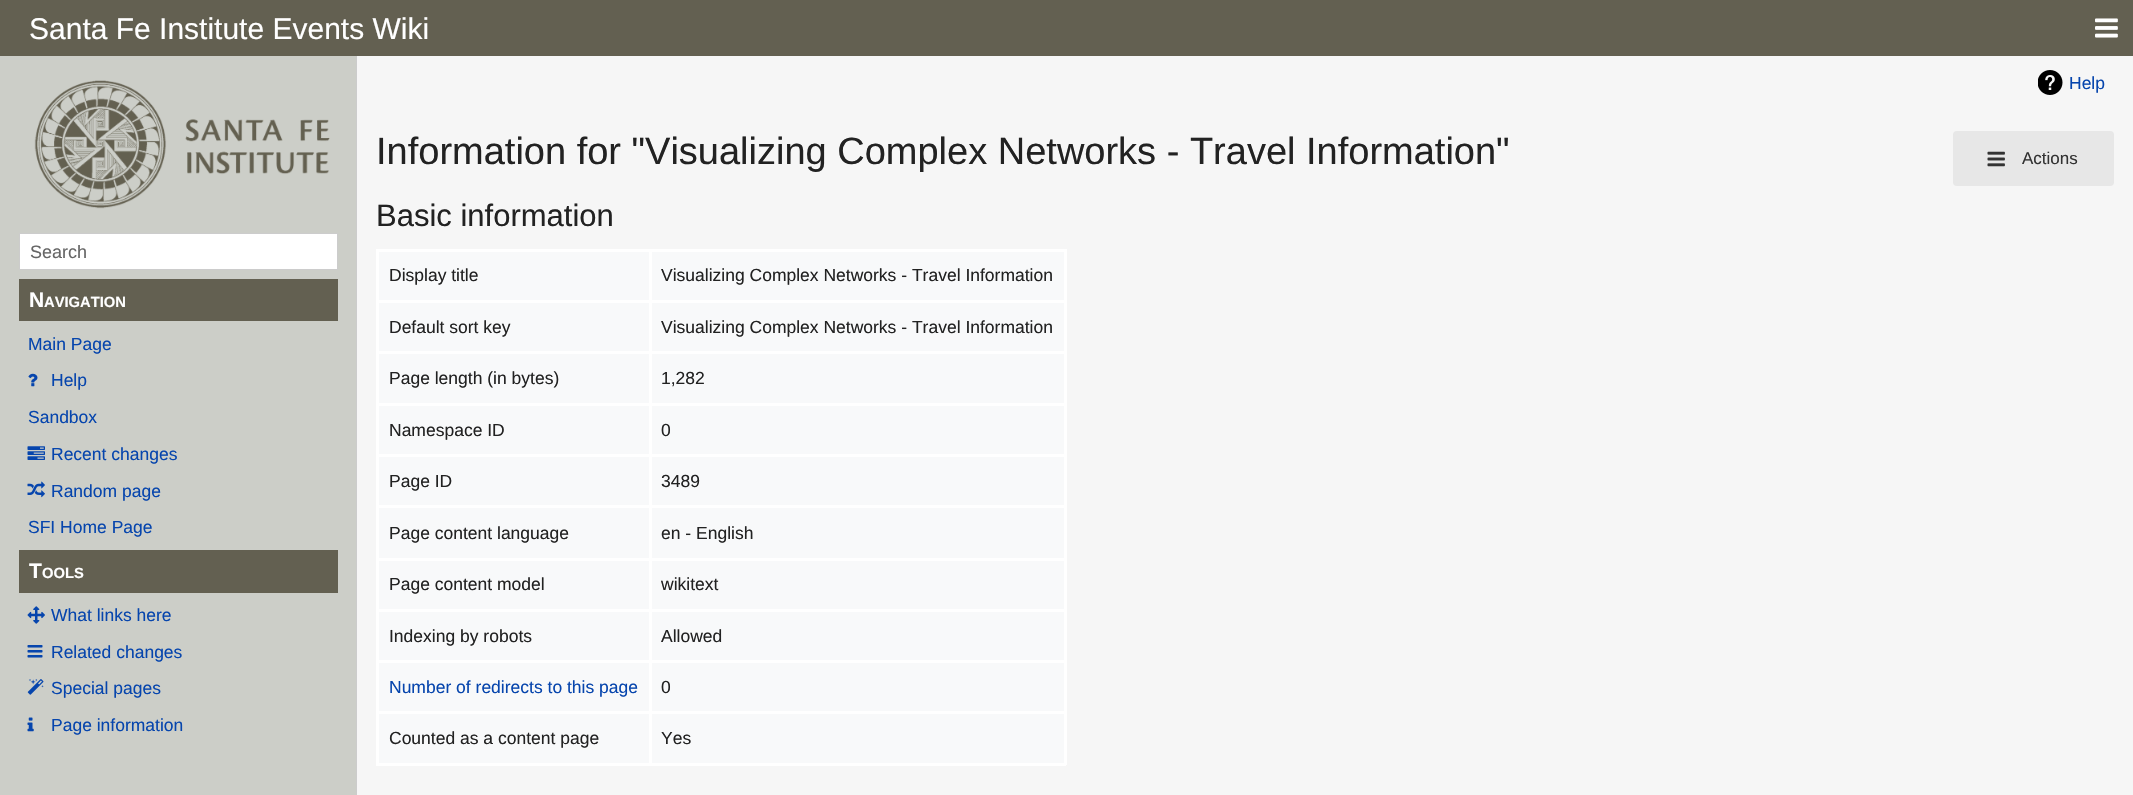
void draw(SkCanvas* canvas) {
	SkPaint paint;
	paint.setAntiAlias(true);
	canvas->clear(0xffcccec8);
	paint.setColor(0xff636051);
	canvas->drawRect(SkRect::MakeXYWH(0, 0, 2133, 56), paint);
	SkFont f1(fontMgr->matchFamilyStyle("Liberation Sans", SkFontStyle::Normal()), 30);
	f1.setSubpixel(true);
	paint.setColor(0xffffffff);
	canvas->drawString("Santa Fe Institute Events Wiki", 29, 39, f1, paint);
	canvas->drawImageRect(SkImages::DeferredFromEncodedData(SkData::MakeFromFileName("img1.png")), SkRect::MakeXYWH(2095, 18, 23, 20), SkSamplingOptions());
	canvas->drawImageRect(SkImages::DeferredFromEncodedData(SkData::MakeFromFileName("img2.png")), SkRect::MakeXYWH(34, 80, 296, 129), SkSamplingOptions());
	canvas->drawRect(SkRect::MakeXYWH(19.5, 233.5, 318, 36), paint);
	paint.setStroke(true);
	paint.setStrokeWidth(1);
	paint.setColor(0xffcccccc);
	canvas->drawRect(SkRect::MakeXYWH(19.5, 233.5, 318, 36), paint);
	SkFont f2(fontMgr->matchFamilyStyle("Liberation Sans", SkFontStyle::Normal()), 18);
	f2.setSubpixel(true);
	paint.setStroke(false);
	paint.setColor(0xff666666);
	canvas->drawString("Search", 30, 258, f2, paint);
	paint.setColor(0xff636051);
	canvas->drawRect(SkRect::MakeXYWH(19, 279, 319, 42), paint);
	SkFont f3(fontMgr->matchFamilyStyle("Liberation Sans", SkFontStyle::Bold()), 21);
	f3.setSubpixel(true);
	paint.setColor(0xffffffff);
	canvas->drawString("N", 29, 307, f3, paint);
	SkFont f4(fontMgr->matchFamilyStyle("Liberation Sans", SkFontStyle::Bold()), 14.75);
	f4.setSubpixel(true);
	canvas->drawString("AVIGATION", 44, 307, f4, paint);
	SkFont f5(fontMgr->matchFamilyStyle("Liberation Sans", SkFontStyle::Normal()), 17.5);
	f5.setSubpixel(true);
	paint.setColor(0xff0645ad);
	canvas->drawString("Main Page", 28, 350, f5, paint);
	canvas->drawImageRect(SkImages::DeferredFromEncodedData(SkData::MakeFromFileName("img3.png")), SkRect::MakeXYWH(28, 373, 10, 14), SkSamplingOptions());
	canvas->drawString("Help", 51, 386, f5, paint);
	canvas->drawString("Sandbox", 28, 423, f5, paint);
	canvas->drawImageRect(SkImages::DeferredFromEncodedData(SkData::MakeFromFileName("img4.png")), SkRect::MakeXYWH(27, 446, 18, 14), SkSamplingOptions());
	canvas->drawString("Recent changes", 51, 460, f5, paint);
	canvas->drawImageRect(SkImages::DeferredFromEncodedData(SkData::MakeFromFileName("img5.png")), SkRect::MakeXYWH(27, 481, 18, 17), SkSamplingOptions());
	canvas->drawString("Random page", 51, 497, f5, paint);
	canvas->drawString("SFI Home Page", 28, 533, f5, paint);
	paint.setColor(0xff636051);
	canvas->drawRect(SkRect::MakeXYWH(19, 550, 319, 43), paint);
	paint.setColor(0xffffffff);
	canvas->drawString("T", 29, 578, f3, paint);
	canvas->drawString("OOLS", 42, 578, f4, paint);
	canvas->drawImageRect(SkImages::DeferredFromEncodedData(SkData::MakeFromFileName("img6.png")), SkRect::MakeXYWH(27, 606, 18, 18), SkSamplingOptions());
	paint.setColor(0xff0645ad);
	canvas->drawString("What links here", 51, 621, f5, paint);
	canvas->drawImageRect(SkImages::DeferredFromEncodedData(SkData::MakeFromFileName("img7.png")), SkRect::MakeXYWH(27, 645, 16, 13), SkSamplingOptions());
	canvas->drawString("Related changes", 51, 658, f5, paint);
	canvas->drawImageRect(SkImages::DeferredFromEncodedData(SkData::MakeFromFileName("img8.png")), SkRect::MakeXYWH(27, 679, 17, 16), SkSamplingOptions());
	canvas->drawString("Special pages", 51, 694, f5, paint);
	canvas->drawImageRect(SkImages::DeferredFromEncodedData(SkData::MakeFromFileName("img9.png")), SkRect::MakeXYWH(27, 717, 7, 15), SkSamplingOptions());
	canvas->drawString("Page information", 51, 731, f5, paint);
	paint.setColor(0xfff6f6f6);
	canvas->drawRect(SkRect::MakeXYWH(357, 56, 1776, 739), paint);
	paint.setColor(0xffcccccc);
	canvas->drawRect(SkRect::MakeXYWH(356, 56, 1, 739), paint);
	canvas->drawImageRect(SkImages::DeferredFromEncodedData(SkData::MakeFromFileName("img10.png")), SkRect::MakeXYWH(2038, 70, 25, 25), SkSamplingOptions());
	paint.setColor(0xff0645ad);
	canvas->drawString("Help", 2069, 89, f5, paint);
	SkFont f6(fontMgr->matchFamilyStyle("Liberation Sans", SkFontStyle::Normal()), 38);
	f6.setSubpixel(true);
	paint.setColor(0xff222222);
	canvas->drawString("Information for \"Visualizing Complex Networks - Travel Information\"", 376, 164, f6, paint);
	SkFont f7(fontMgr->matchFamilyStyle("Liberation Sans", SkFontStyle::Normal()), 31);
	f7.setSubpixel(true);
	canvas->drawString("Basic information", 376, 226, f7, paint);
	paint.setColor(0xfff8f9fa);
	canvas->drawRect(SkRect::MakeXYWH(379, 252, 685, 511), paint);
	paint.setColor(0xffffffff);
	canvas->drawRect(SkRect::MakeXYWH(649, 249, 417, 3), paint);
	canvas->drawRect(SkRect::MakeXYWH(649, 300, 417, 3), paint);
	canvas->drawRect(SkRect::MakeXYWH(649, 351, 417, 3), paint);
	canvas->drawRect(SkRect::MakeXYWH(649, 403, 417, 3), paint);
	canvas->drawRect(SkRect::MakeXYWH(649, 454, 417, 3), paint);
	canvas->drawRect(SkRect::MakeXYWH(649, 505, 417, 3), paint);
	canvas->drawRect(SkRect::MakeXYWH(649, 558, 417, 3), paint);
	canvas->drawRect(SkRect::MakeXYWH(649, 609, 417, 3), paint);
	canvas->drawRect(SkRect::MakeXYWH(649, 660, 417, 3), paint);
	canvas->drawRect(SkRect::MakeXYWH(649, 711, 417, 3), paint);
	canvas->drawRect(SkRect::MakeXYWH(1064, 711, 3, 54), paint);
	canvas->drawRect(SkRect::MakeXYWH(649, 763, 417, 3), paint);
	canvas->drawRect(SkRect::MakeXYWH(649, 711, 3, 54), paint);
	canvas->drawRect(SkRect::MakeXYWH(376, 711, 275, 3), paint);
	canvas->drawRect(SkRect::MakeXYWH(649, 660, 3, 54), paint);
	canvas->drawRect(SkRect::MakeXYWH(376, 660, 275, 3), paint);
	canvas->drawRect(SkRect::MakeXYWH(649, 609, 3, 54), paint);
	canvas->drawRect(SkRect::MakeXYWH(376, 609, 275, 3), paint);
	canvas->drawRect(SkRect::MakeXYWH(649, 558, 3, 53), paint);
	canvas->drawRect(SkRect::MakeXYWH(376, 558, 275, 3), paint);
	canvas->drawRect(SkRect::MakeXYWH(649, 505, 3, 55), paint);
	canvas->drawRect(SkRect::MakeXYWH(376, 505, 275, 3), paint);
	canvas->drawRect(SkRect::MakeXYWH(649, 454, 3, 54), paint);
	canvas->drawRect(SkRect::MakeXYWH(376, 454, 275, 3), paint);
	canvas->drawRect(SkRect::MakeXYWH(649, 403, 3, 53), paint);
	canvas->drawRect(SkRect::MakeXYWH(376, 403, 275, 3), paint);
	canvas->drawRect(SkRect::MakeXYWH(649, 351, 3, 54), paint);
	canvas->drawRect(SkRect::MakeXYWH(376, 351, 275, 3), paint);
	canvas->drawRect(SkRect::MakeXYWH(649, 300, 3, 54), paint);
	canvas->drawRect(SkRect::MakeXYWH(376, 300, 275, 3), paint);
	canvas->drawRect(SkRect::MakeXYWH(649, 249, 3, 54), paint);
	canvas->drawRect(SkRect::MakeXYWH(376, 249, 275, 3), paint);
	canvas->drawRect(SkRect::MakeXYWH(376, 763, 275, 3), paint);
	canvas->drawRect(SkRect::MakeXYWH(376, 711, 3, 54), paint);
	canvas->drawRect(SkRect::MakeXYWH(376, 660, 3, 54), paint);
	canvas->drawRect(SkRect::MakeXYWH(376, 609, 3, 54), paint);
	canvas->drawRect(SkRect::MakeXYWH(376, 558, 3, 53), paint);
	canvas->drawRect(SkRect::MakeXYWH(376, 505, 3, 55), paint);
	canvas->drawRect(SkRect::MakeXYWH(376, 454, 3, 54), paint);
	canvas->drawRect(SkRect::MakeXYWH(376, 403, 3, 53), paint);
	canvas->drawRect(SkRect::MakeXYWH(376, 351, 3, 54), paint);
	canvas->drawRect(SkRect::MakeXYWH(376, 300, 3, 54), paint);
	canvas->drawRect(SkRect::MakeXYWH(376, 249, 3, 54), paint);
	paint.setColor(0xff222222);
	canvas->drawString("Display title", 389, 281, f5, paint);
	paint.setColor(0xffffffff);
	canvas->drawRect(SkRect::MakeXYWH(1064, 660, 3, 54), paint);
	canvas->drawRect(SkRect::MakeXYWH(1064, 609, 3, 54), paint);
	canvas->drawRect(SkRect::MakeXYWH(1064, 558, 3, 53), paint);
	canvas->drawRect(SkRect::MakeXYWH(1064, 505, 3, 55), paint);
	canvas->drawRect(SkRect::MakeXYWH(1064, 454, 3, 54), paint);
	canvas->drawRect(SkRect::MakeXYWH(1064, 403, 3, 53), paint);
	canvas->drawRect(SkRect::MakeXYWH(1064, 351, 3, 54), paint);
	canvas->drawRect(SkRect::MakeXYWH(1064, 300, 3, 54), paint);
	canvas->drawRect(SkRect::MakeXYWH(1064, 249, 3, 54), paint);
	paint.setColor(0xff222222);
	canvas->drawString("Visualizing Complex Networks - Travel Information", 661, 281, f5, paint);
	canvas->drawString("Default sort key", 389, 333, f5, paint);
	canvas->drawString("Visualizing Complex Networks - Travel Information", 661, 333, f5, paint);
	canvas->drawString("Page length (in bytes)", 389, 384, f5, paint);
	canvas->drawString("1,282", 661, 384, f5, paint);
	canvas->drawString("Namespace ID", 389, 436, f5, paint);
	canvas->drawString("0", 661, 436, f5, paint);
	canvas->drawString("Page ID", 389, 487, f5, paint);
	canvas->drawString("3489", 661, 487, f5, paint);
	canvas->drawString("Page content language", 389, 539, f5, paint);
	canvas->drawString("en - English", 661, 539, f5, paint);
	canvas->drawString("Page content model", 389, 590, f5, paint);
	canvas->drawString("wikitext", 661, 590, f5, paint);
	canvas->drawString("Indexing by robots", 389, 642, f5, paint);
	canvas->drawString("Allowed", 661, 642, f5, paint);
	paint.setColor(0xff0645ad);
	canvas->drawString("Number of redirects to this page", 389, 693, f5, paint);
	paint.setColor(0xff222222);
	canvas->drawString("0", 661, 693, f5, paint);
	canvas->drawString("Counted as a content page", 389, 744, f5, paint);
	canvas->drawString("Yes", 661, 744, f5, paint);
	paint.setColor(0xffe7e7e7);
	canvas->drawRoundRect(SkRect::MakeXYWH(1953, 131, 161, 55), 4, 4, paint);
	canvas->drawImageRect(SkImages::DeferredFromEncodedData(SkData::MakeFromFileName("img11.png")), SkRect::MakeXYWH(1987, 151, 18, 16), SkSamplingOptions());
	SkFont f8(fontMgr->matchFamilyStyle("Liberation Sans", SkFontStyle::Normal()), 17);
	f8.setSubpixel(true);
	paint.setColor(0xff333333);
	canvas->drawString("Actions", 2022, 164, f8, paint);
}
